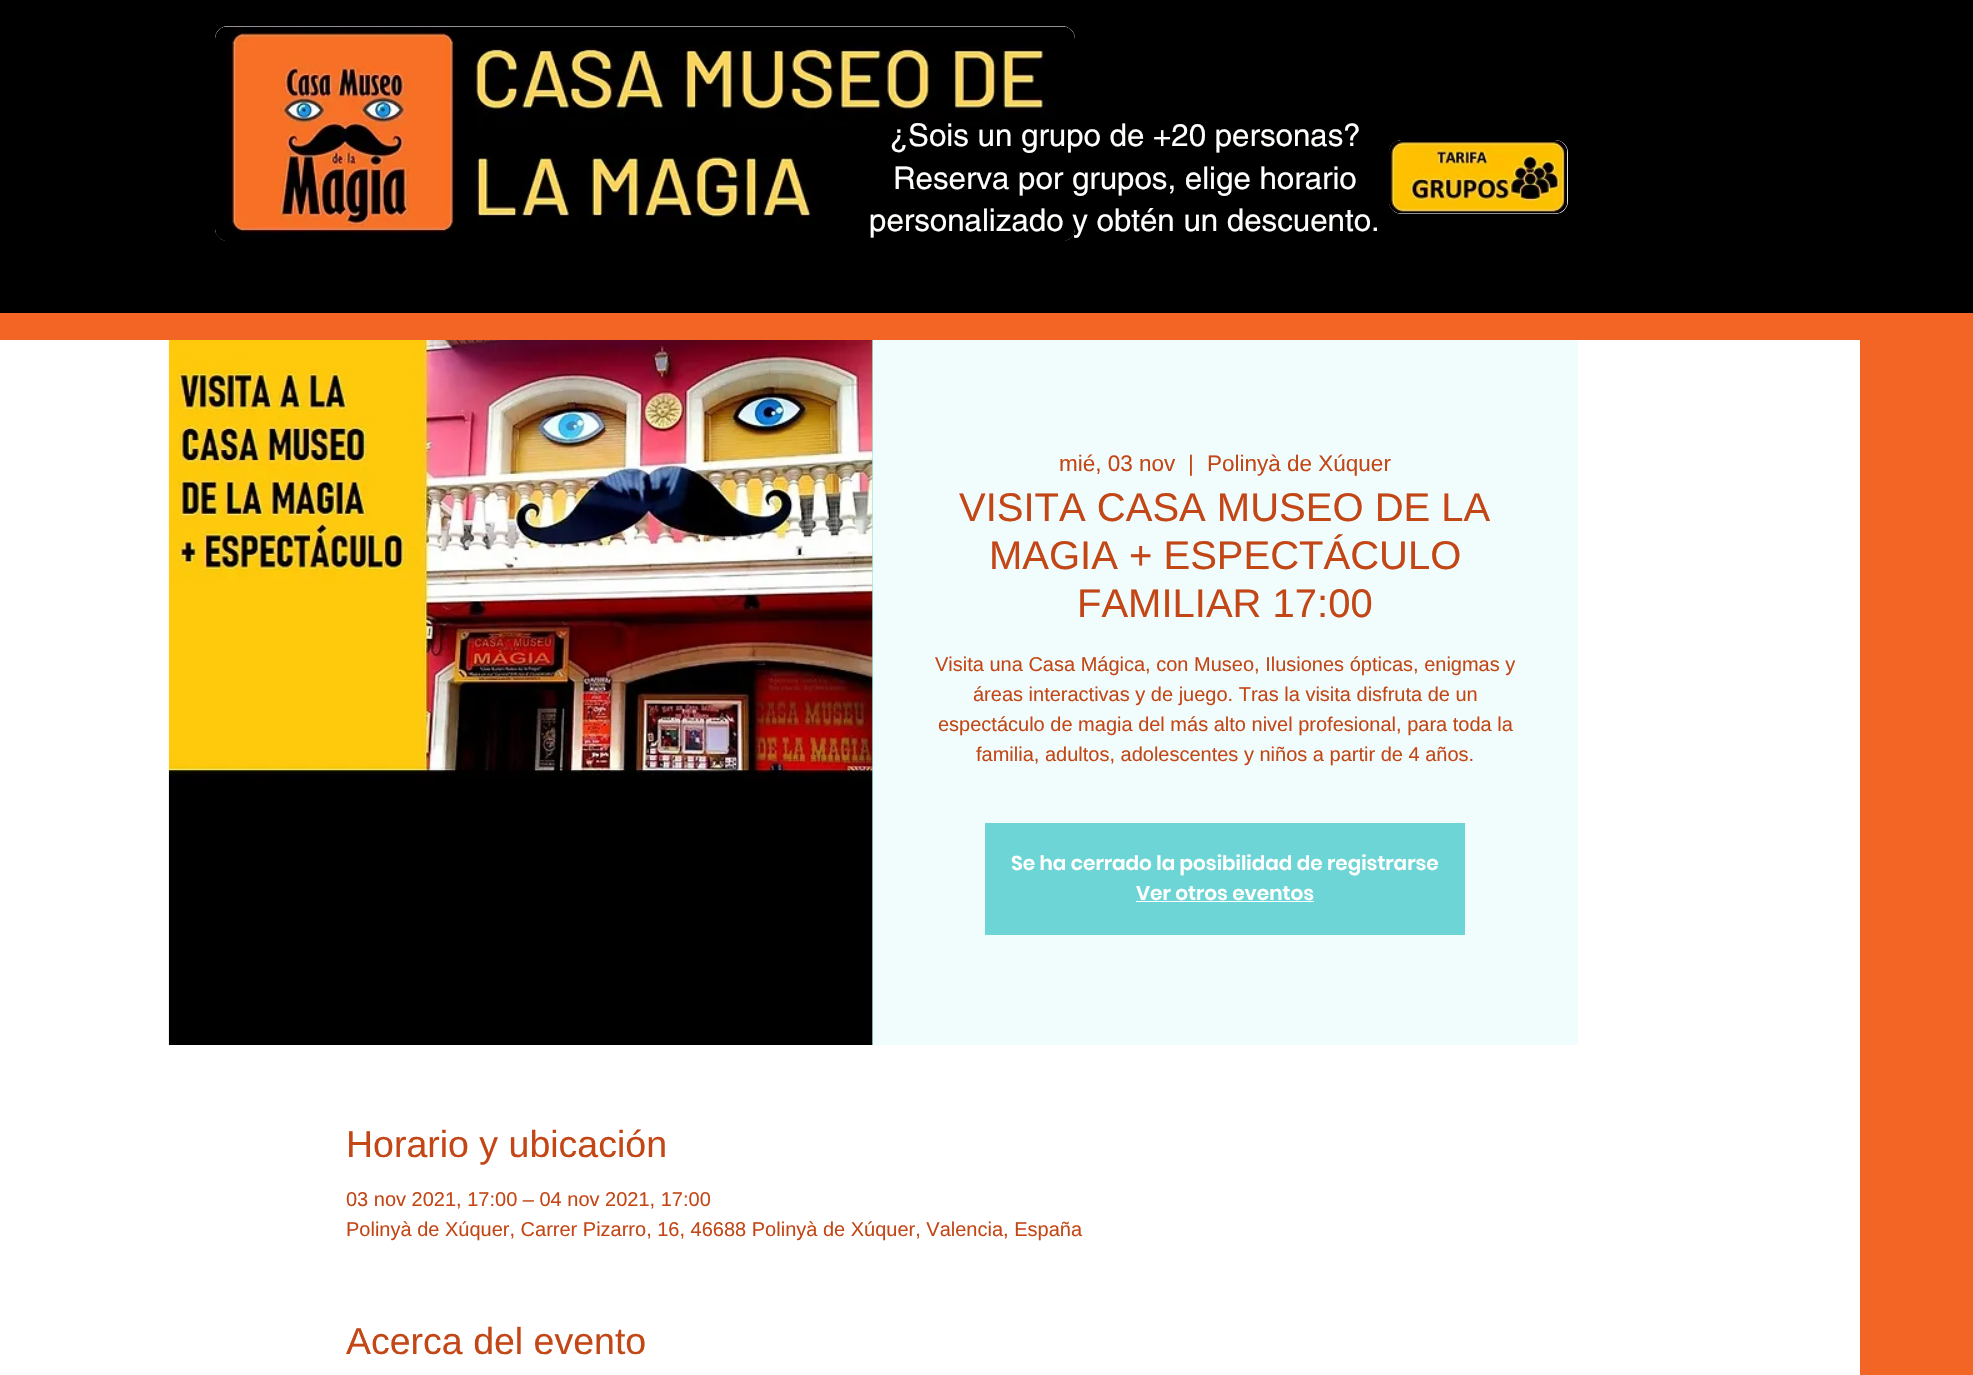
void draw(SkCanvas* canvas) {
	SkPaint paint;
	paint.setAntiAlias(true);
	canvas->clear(0xfff26524);
	paint.setColor(0xff000000);
	canvas->drawRect(SkRect::MakeXYWH(0, 0, 1973, 313), paint);
	paint.setColor(0xffffffff);
	canvas->drawRoundRect(SkRect::MakeXYWH(215, 26, 860, 215), 13, 13, paint);
	canvas->drawImageRect(SkImages::DeferredFromEncodedData(SkData::MakeFromFileName("img1.png")), SkRect::MakeXYWH(215, 26, 860, 215), SkSamplingOptions());
	SkFont f1(fontMgr->matchFamilyStyle("helvetica", SkFontStyle::Normal()), 31.25);
	f1.setSubpixel(true);
	paint.setColor(0xfffffffe);
	canvas->drawString("¿Sois un grupo de +20 personas?", 889, 146, f1, paint);
	canvas->drawString("Reserva por grupos, elige horario", 893, 189, f1, paint);
	canvas->drawString("personalizado y obtén un descuento.", 869, 231, f1, paint);
	paint.setColor(0xffffffff);
	canvas->drawRoundRect(SkRect::MakeXYWH(1389, 140, 179, 74), 13, 13, paint);
	canvas->drawImageRect(SkImages::DeferredFromEncodedData(SkData::MakeFromFileName("img2.png")), SkRect::MakeXYWH(1389, 140, 179, 74), SkSamplingOptions());
	canvas->drawRect(SkRect::MakeXYWH(0, 340, 1860, 1035), paint);
	paint.setColor(0xff9de9ea);
	canvas->drawRect(SkRect::MakeXYWH(872, 340, 1, 705), paint);
	canvas->drawImageRect(SkImages::DeferredFromEncodedData(SkData::MakeFromFileName("img3.png")), SkRect::MakeXYWH(168, 340, 705, 705), SkSamplingOptions());
	paint.setColor(0xfff1fcfc);
	canvas->drawRect(SkRect::MakeXYWH(873, 340, 705, 705), paint);
	SkFont f2(fontMgr->matchFamilyStyle("Liberation Sans", SkFontStyle::Normal()), 22.5);
	f2.setSubpixel(true);
	paint.setColor(0xffc34716);
	canvas->drawString("mié, 03 nov", 1059, 471, f2, paint);
	canvas->drawString("|", 1188, 471, f2, paint);
	canvas->drawString("Polinyà de Xúquer", 1207, 471, f2, paint);
	SkFont f3(fontMgr->matchFamilyStyle("Liberation Sans", SkFontStyle::Normal()), 40);
	f3.setSubpixel(true);
	canvas->drawString("VISITA CASA MUSEO DE LA", 959, 521, f3, paint);
	canvas->drawString("MAGIA + ESPECTÁCULO", 989, 569, f3, paint);
	canvas->drawString("FAMILIAR 17:00", 1077, 617, f3, paint);
	SkFont f4(fontMgr->matchFamilyStyle("Liberation Sans", SkFontStyle::Normal()), 20);
	f4.setSubpixel(true);
	canvas->drawString("Visita una Casa Mágica, con Museo, Ilusiones ópticas, enigmas y", 935, 671, f4, paint);
	canvas->drawString("áreas interactivas y de juego. Tras la visita disfruta de un", 973, 701, f4, paint);
	canvas->drawString("espectáculo de magia del más alto nivel profesional, para toda la", 938, 731, f4, paint);
	canvas->drawString("familia, adultos, adolescentes y niños a partir de 4 años.", 976, 761, f4, paint);
	paint.setColor(0xff6ed5d7);
	canvas->drawRect(SkRect::MakeXYWH(985, 823, 480, 112), paint);
	SkFont f5(fontMgr->matchFamilyStyle("Poppins", SkFontStyle(600, SkFontStyle::kNormal_Width, SkFontStyle::kUpright_Slant)), 20);
	f5.setSubpixel(true);
	paint.setColor(0xfffffffe);
	canvas->drawString("Se ha cerrado la posibilidad de registrarse", 1011, 870, f5, paint);
	canvas->drawString("Ver otros eventos", 1136, 900, f5, paint);
	paint.setColor(0xffffffff);
	canvas->drawRect(SkRect::MakeXYWH(1136, 901, 178, 1), paint);
	SkFont f6(fontMgr->matchFamilyStyle("Liberation Sans", SkFontStyle::Normal()), 37.5);
	f6.setSubpixel(true);
	paint.setColor(0xffc34716);
	canvas->drawString("Horario y ubicación", 346, 1157, f6, paint);
	canvas->drawString("03 nov 2021, 17:00 – 04 nov 2021, 17:00", 346, 1206, f4, paint);
	canvas->drawString("Polinyà de Xúquer, Carrer Pizarro, 16, 46688 Polinyà de Xúquer, Valencia, España", 346, 1236, f4, paint);
	canvas->drawString("Acerca del evento", 346, 1354, f6, paint);
}
